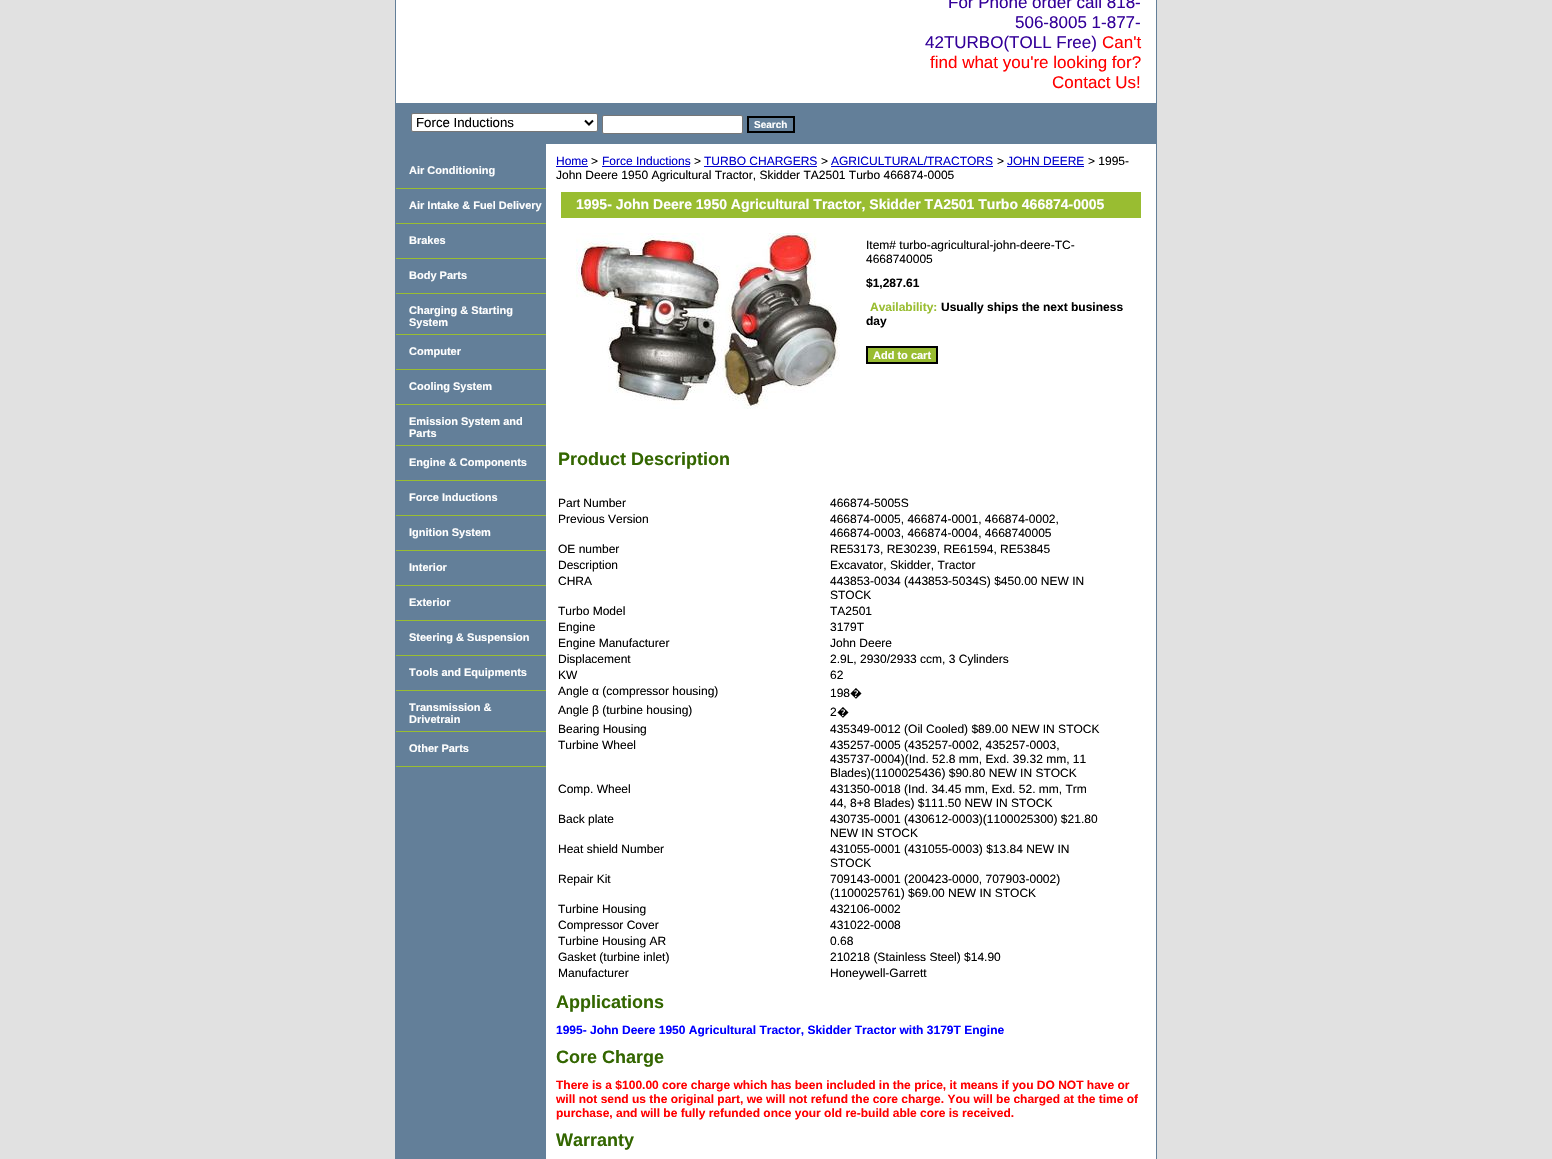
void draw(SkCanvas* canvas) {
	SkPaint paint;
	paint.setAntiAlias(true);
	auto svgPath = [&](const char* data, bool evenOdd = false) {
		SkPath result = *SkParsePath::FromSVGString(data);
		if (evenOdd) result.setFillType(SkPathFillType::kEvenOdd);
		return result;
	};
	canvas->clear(0xffe1e1e1);
	paint.setColor(0xffffffff);
	canvas->drawRect(SkRect::MakeXYWH(395.5, -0.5, 761, 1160), paint);
	paint.setStroke(true);
	paint.setStrokeWidth(1);
	paint.setColor(0xff637f99);
	canvas->drawRect(SkRect::MakeXYWH(395.5, -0.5, 761, 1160), paint);
	SkFont f1(fontMgr->matchFamilyStyle("Liberation Sans", SkFontStyle::Normal()), 17);
	f1.setSubpixel(true);
	paint.setStroke(false);
	paint.setColor(0xff330099);
	canvas->drawString("For Phone order call 818-", 948, 8, f1, paint);
	canvas->drawString("506-8005 1-877-", 1015, 28, f1, paint);
	canvas->drawString("42TURBO(TOLL Free)", 925, 48, f1, paint);
	paint.setColor(0xffff0000);
	canvas->drawString("Can't", 1102, 48, f1, paint);
	canvas->drawString("find what you're looking for?", 930, 68, f1, paint);
	canvas->drawString("Contact Us!", 1052, 88, f1, paint);
	paint.setColor(0xff637f99);
	canvas->drawRect(SkRect::MakeXYWH(396, 103, 760, 41), paint);
	paint.setColor(0xffffffff);
	canvas->drawRoundRect(SkRect::MakeXYWH(411.5, 113.5, 186, 18), 1.5, 1.5, paint);
	paint.setStroke(true);
	paint.setColor(0xff767676);
	canvas->drawRoundRect(SkRect::MakeXYWH(411.5, 113.5, 186, 18), 1.5, 1.5, paint);
	paint.setStrokeWidth(2);
	paint.setColor(0xff000000);
	canvas->drawPath(svgPath("M585 120.5L589 124.5L593 120.5"), paint);
	SkFont f2(fontMgr->matchFamilyStyle("Liberation Sans", SkFontStyle::Normal()), 13.25);
	f2.setSubpixel(true);
	paint.setStroke(false);
	canvas->drawString("Force Inductions", 416, 127, f2, paint);
	paint.setColor(0xffffffff);
	canvas->drawRoundRect(SkRect::MakeXYWH(602.5, 115.5, 140, 18), 1.5, 1.5, paint);
	paint.setStroke(true);
	paint.setStrokeWidth(1);
	paint.setColor(0xff767676);
	canvas->drawRoundRect(SkRect::MakeXYWH(602.5, 115.5, 140, 18), 1.5, 1.5, paint);
	paint.setStrokeWidth(2);
	paint.setColor(0xff000000);
	canvas->drawRect(SkRect::MakeXYWH(748, 117, 46, 15), paint);
	SkFont f3(fontMgr->matchFamilyStyle("Liberation Sans", SkFontStyle::Bold()), 10);
	f3.setSubpixel(true);
	paint.setStroke(false);
	paint.setColor(0xffffffff);
	canvas->drawString("Search", 754, 128, f3, paint);
	paint.setColor(0xff637f99);
	canvas->drawRect(SkRect::MakeXYWH(396, 144, 150, 1015), paint);
	paint.setColor(0xff99bd31);
	canvas->drawRect(SkRect::MakeXYWH(396, 188, 150, 1), paint);
	SkFont f4(fontMgr->matchFamilyStyle("Liberation Sans", SkFontStyle::Bold()), 11);
	f4.setSubpixel(true);
	paint.setColor(0xffffffff);
	canvas->drawString("Air Conditioning", 409, 174, f4, paint);
	paint.setColor(0xff99bd31);
	canvas->drawRect(SkRect::MakeXYWH(396, 223, 150, 1), paint);
	paint.setColor(0xffffffff);
	canvas->drawString("Air Intake & Fuel Delivery", 409, 209, f4, paint);
	paint.setColor(0xff99bd31);
	canvas->drawRect(SkRect::MakeXYWH(396, 258, 150, 1), paint);
	paint.setColor(0xffffffff);
	canvas->drawString("Brakes", 409, 244, f4, paint);
	paint.setColor(0xff99bd31);
	canvas->drawRect(SkRect::MakeXYWH(396, 293, 150, 1), paint);
	paint.setColor(0xffffffff);
	canvas->drawString("Body Parts", 409, 279, f4, paint);
	paint.setColor(0xff99bd31);
	canvas->drawRect(SkRect::MakeXYWH(396, 334, 150, 1), paint);
	paint.setColor(0xffffffff);
	canvas->drawString("Charging & Starting", 409, 314, f4, paint);
	canvas->drawString("System", 409, 326, f4, paint);
	paint.setColor(0xff99bd31);
	canvas->drawRect(SkRect::MakeXYWH(396, 369, 150, 1), paint);
	paint.setColor(0xffffffff);
	canvas->drawString("Computer", 409, 355, f4, paint);
	paint.setColor(0xff99bd31);
	canvas->drawRect(SkRect::MakeXYWH(396, 404, 150, 1), paint);
	paint.setColor(0xffffffff);
	canvas->drawString("Cooling System", 409, 390, f4, paint);
	paint.setColor(0xff99bd31);
	canvas->drawRect(SkRect::MakeXYWH(396, 445, 150, 1), paint);
	paint.setColor(0xffffffff);
	canvas->drawString("Emission System and", 409, 425, f4, paint);
	canvas->drawString("Parts", 409, 437, f4, paint);
	paint.setColor(0xff99bd31);
	canvas->drawRect(SkRect::MakeXYWH(396, 480, 150, 1), paint);
	paint.setColor(0xffffffff);
	canvas->drawString("Engine & Components", 409, 466, f4, paint);
	paint.setColor(0xff99bd31);
	canvas->drawRect(SkRect::MakeXYWH(396, 515, 150, 1), paint);
	paint.setColor(0xffffffff);
	canvas->drawString("Force Inductions", 409, 501, f4, paint);
	paint.setColor(0xff99bd31);
	canvas->drawRect(SkRect::MakeXYWH(396, 550, 150, 1), paint);
	paint.setColor(0xffffffff);
	canvas->drawString("Ignition System", 409, 536, f4, paint);
	paint.setColor(0xff99bd31);
	canvas->drawRect(SkRect::MakeXYWH(396, 585, 150, 1), paint);
	paint.setColor(0xffffffff);
	canvas->drawString("Interior", 409, 571, f4, paint);
	paint.setColor(0xff99bd31);
	canvas->drawRect(SkRect::MakeXYWH(396, 620, 150, 1), paint);
	paint.setColor(0xffffffff);
	canvas->drawString("Exterior", 409, 606, f4, paint);
	paint.setColor(0xff99bd31);
	canvas->drawRect(SkRect::MakeXYWH(396, 655, 150, 1), paint);
	paint.setColor(0xffffffff);
	canvas->drawString("Steering & Suspension", 409, 641, f4, paint);
	paint.setColor(0xff99bd31);
	canvas->drawRect(SkRect::MakeXYWH(396, 690, 150, 1), paint);
	paint.setColor(0xffffffff);
	canvas->drawString("Tools and Equipments", 409, 676, f4, paint);
	paint.setColor(0xff99bd31);
	canvas->drawRect(SkRect::MakeXYWH(396, 731, 150, 1), paint);
	paint.setColor(0xffffffff);
	canvas->drawString("Transmission &", 409, 711, f4, paint);
	canvas->drawString("Drivetrain", 409, 723, f4, paint);
	paint.setColor(0xff99bd31);
	canvas->drawRect(SkRect::MakeXYWH(396, 766, 150, 1), paint);
	paint.setColor(0xffffffff);
	canvas->drawString("Other Parts", 409, 752, f4, paint);
	SkFont f5(fontMgr->matchFamilyStyle("Liberation Sans", SkFontStyle::Normal()), 12);
	f5.setSubpixel(true);
	paint.setColor(0xff0000cc);
	canvas->drawString("Home", 556, 165, f5, paint);
	canvas->drawRect(SkRect::MakeXYWH(556, 166, 32, 1), paint);
	paint.setColor(0xff000000);
	canvas->drawString(">", 591, 165, f5, paint);
	paint.setColor(0xff0000cc);
	canvas->drawString("Force Inductions", 602, 165, f5, paint);
	canvas->drawRect(SkRect::MakeXYWH(602, 166, 88, 1), paint);
	paint.setColor(0xff000000);
	canvas->drawString(">", 694, 165, f5, paint);
	paint.setColor(0xff0000cc);
	canvas->drawString("TURBO CHARGERS", 704, 165, f5, paint);
	canvas->drawRect(SkRect::MakeXYWH(704, 166, 113, 1), paint);
	paint.setColor(0xff000000);
	canvas->drawString(">", 821, 165, f5, paint);
	paint.setColor(0xff0000cc);
	canvas->drawString("AGRICULTURAL/TRACTORS", 831, 165, f5, paint);
	canvas->drawRect(SkRect::MakeXYWH(831, 166, 162, 1), paint);
	paint.setColor(0xff000000);
	canvas->drawString(">", 997, 165, f5, paint);
	paint.setColor(0xff0000cc);
	canvas->drawString("JOHN DEERE", 1007, 165, f5, paint);
	canvas->drawRect(SkRect::MakeXYWH(1007, 166, 77, 1), paint);
	paint.setColor(0xff000000);
	canvas->drawString("> 1995-", 1088, 165, f5, paint);
	canvas->drawString("John Deere 1950 Agricultural Tractor, Skidder TA2501 Turbo 466874-0005", 556, 179, f5, paint);
	paint.setColor(0xff99bd31);
	canvas->drawRect(SkRect::MakeXYWH(561, 192, 580, 26), paint);
	SkFont f6(fontMgr->matchFamilyStyle("Liberation Sans", SkFontStyle::Bold()), 14);
	f6.setSubpixel(true);
	paint.setColor(0xffffffff);
	canvas->drawString("1995- John Deere 1950 Agricultural Tractor, Skidder TA2501 Turbo 466874-0005", 576, 209, f6, paint);
	canvas->drawImageRect(SkImages::DeferredFromEncodedData(SkData::MakeFromFileName("img1.png")), SkRect::MakeXYWH(576, 233, 264, 176), SkSamplingOptions());
	paint.setColor(0xff000000);
	canvas->drawString("Item# turbo-agricultural-john-deere-TC-", 866, 249, f5, paint);
	canvas->drawString("4668740005", 866, 263, f5, paint);
	SkFont f7(fontMgr->matchFamilyStyle("Liberation Sans", SkFontStyle::Bold()), 12);
	f7.setSubpixel(true);
	canvas->drawString("$1,287.61", 866, 287, f7, paint);
	paint.setColor(0xff99bd31);
	canvas->drawString("Availability:", 870, 311, f7, paint);
	paint.setColor(0xff000000);
	canvas->drawString("Usually ships the next business", 941, 311, f7, paint);
	canvas->drawString("day", 866, 325, f7, paint);
	paint.setColor(0xff99bd31);
	canvas->drawRect(SkRect::MakeXYWH(867, 347, 70, 16), paint);
	paint.setStroke(true);
	paint.setColor(0xff000000);
	canvas->drawRect(SkRect::MakeXYWH(867, 347, 70, 16), paint);
	paint.setStroke(false);
	paint.setColor(0xffffffff);
	canvas->drawString("Add to cart", 873, 359, f4, paint);
	SkFont f8(fontMgr->matchFamilyStyle("Liberation Sans", SkFontStyle::Bold()), 18);
	f8.setSubpixel(true);
	paint.setColor(0xff336600);
	canvas->drawString("Product Description", 558, 465, f8, paint);
	paint.setColor(0xff000000);
	canvas->drawString("Part Number", 558, 507, f5, paint);
	canvas->drawString("466874-5005S", 830, 507, f5, paint);
	canvas->drawString("Previous Version", 558, 523, f5, paint);
	canvas->drawString("466874-0005, 466874-0001, 466874-0002,", 830, 523, f5, paint);
	canvas->drawString("466874-0003, 466874-0004, 4668740005", 830, 537, f5, paint);
	canvas->drawString("OE number", 558, 553, f5, paint);
	canvas->drawString("RE53173, RE30239, RE61594, RE53845", 830, 553, f5, paint);
	canvas->drawString("Description", 558, 569, f5, paint);
	canvas->drawString("Excavator, Skidder, Tractor", 830, 569, f5, paint);
	canvas->drawString("CHRA", 558, 585, f5, paint);
	canvas->drawString("443853-0034 (443853-5034S) $450.00 NEW IN", 830, 585, f5, paint);
	canvas->drawString("STOCK", 830, 599, f5, paint);
	canvas->drawString("Turbo Model", 558, 615, f5, paint);
	canvas->drawString("TA2501", 830, 615, f5, paint);
	canvas->drawString("Engine", 558, 631, f5, paint);
	canvas->drawString("3179T", 830, 631, f5, paint);
	canvas->drawString("Engine Manufacturer", 558, 647, f5, paint);
	canvas->drawString("John Deere", 830, 647, f5, paint);
	canvas->drawString("Displacement", 558, 663, f5, paint);
	canvas->drawString("2.9L, 2930/2933 ccm, 3 Cylinders", 830, 663, f5, paint);
	canvas->drawString("KW", 558, 679, f5, paint);
	canvas->drawString("62", 830, 679, f5, paint);
	canvas->drawString("Angle α (compressor housing)", 558, 695, f5, paint);
	canvas->drawString("198", 830, 697, f5, paint);
	SkFont f9(fontMgr->matchFamilyStyle("Noto Sans", SkFontStyle::Normal()), 12);
	f9.setSubpixel(true);
	canvas->drawString("�", 850, 697, f9, paint);
	canvas->drawString("Angle β (turbine housing)", 558, 714, f5, paint);
	canvas->drawString("2", 830, 716, f5, paint);
	canvas->drawString("�", 837, 716, f9, paint);
	canvas->drawString("Bearing Housing", 558, 733, f5, paint);
	canvas->drawString("435349-0012 (Oil Cooled) $89.00 NEW IN STOCK", 830, 733, f5, paint);
	canvas->drawString("Turbine Wheel", 558, 749, f5, paint);
	canvas->drawString("435257-0005 (435257-0002, 435257-0003,", 830, 749, f5, paint);
	canvas->drawString("435737-0004)(Ind. 52.8 mm, Exd. 39.32 mm, 11", 830, 763, f5, paint);
	canvas->drawString("Blades)(1100025436) $90.80 NEW IN STOCK", 830, 777, f5, paint);
	canvas->drawString("Comp. Wheel", 558, 793, f5, paint);
	canvas->drawString("431350-0018 (Ind. 34.45 mm, Exd. 52. mm, Trm", 830, 793, f5, paint);
	canvas->drawString("44, 8+8 Blades) $111.50 NEW IN STOCK", 830, 807, f5, paint);
	canvas->drawString("Back plate", 558, 823, f5, paint);
	canvas->drawString("430735-0001 (430612-0003)(1100025300) $21.80", 830, 823, f5, paint);
	canvas->drawString("NEW IN STOCK", 830, 837, f5, paint);
	canvas->drawString("Heat shield Number", 558, 853, f5, paint);
	canvas->drawString("431055-0001 (431055-0003) $13.84 NEW IN", 830, 853, f5, paint);
	canvas->drawString("STOCK", 830, 867, f5, paint);
	canvas->drawString("Repair Kit", 558, 883, f5, paint);
	canvas->drawString("709143-0001 (200423-0000, 707903-0002)", 830, 883, f5, paint);
	canvas->drawString("(1100025761) $69.00 NEW IN STOCK", 830, 897, f5, paint);
	canvas->drawString("Turbine Housing", 558, 913, f5, paint);
	canvas->drawString("432106-0002", 830, 913, f5, paint);
	canvas->drawString("Compressor Cover", 558, 929, f5, paint);
	canvas->drawString("431022-0008", 830, 929, f5, paint);
	canvas->drawString("Turbine Housing AR", 558, 945, f5, paint);
	canvas->drawString("0.68", 830, 945, f5, paint);
	canvas->drawString("Gasket (turbine inlet)", 558, 961, f5, paint);
	canvas->drawString("210218 (Stainless Steel) $14.90", 830, 961, f5, paint);
	canvas->drawString("Manufacturer", 558, 977, f5, paint);
	canvas->drawString("Honeywell-Garrett", 830, 977, f5, paint);
	paint.setColor(0xff336600);
	canvas->drawString("Applications", 556, 1008, f8, paint);
	paint.setColor(0xff0000ff);
	canvas->drawString("1995- John Deere 1950 Agricultural Tractor, Skidder Tractor with 3179T Engine", 556, 1034, f7, paint);
	paint.setColor(0xff336600);
	canvas->drawString("Core Charge", 556, 1063, f8, paint);
	paint.setColor(0xffff0000);
	canvas->drawString("There is a $100.00 core charge which has been included in the price, it means if you DO NOT have or", 556, 1089, f7, paint);
	canvas->drawString("will not send us the original part, we will not refund the core charge. You will be charged at the time of", 556, 1103, f7, paint);
	canvas->drawString("purchase, and will be fully refunded once your old re-build able core is received.", 556, 1117, f7, paint);
	paint.setColor(0xff336600);
	canvas->drawString("Warranty", 556, 1146, f8, paint);
}
